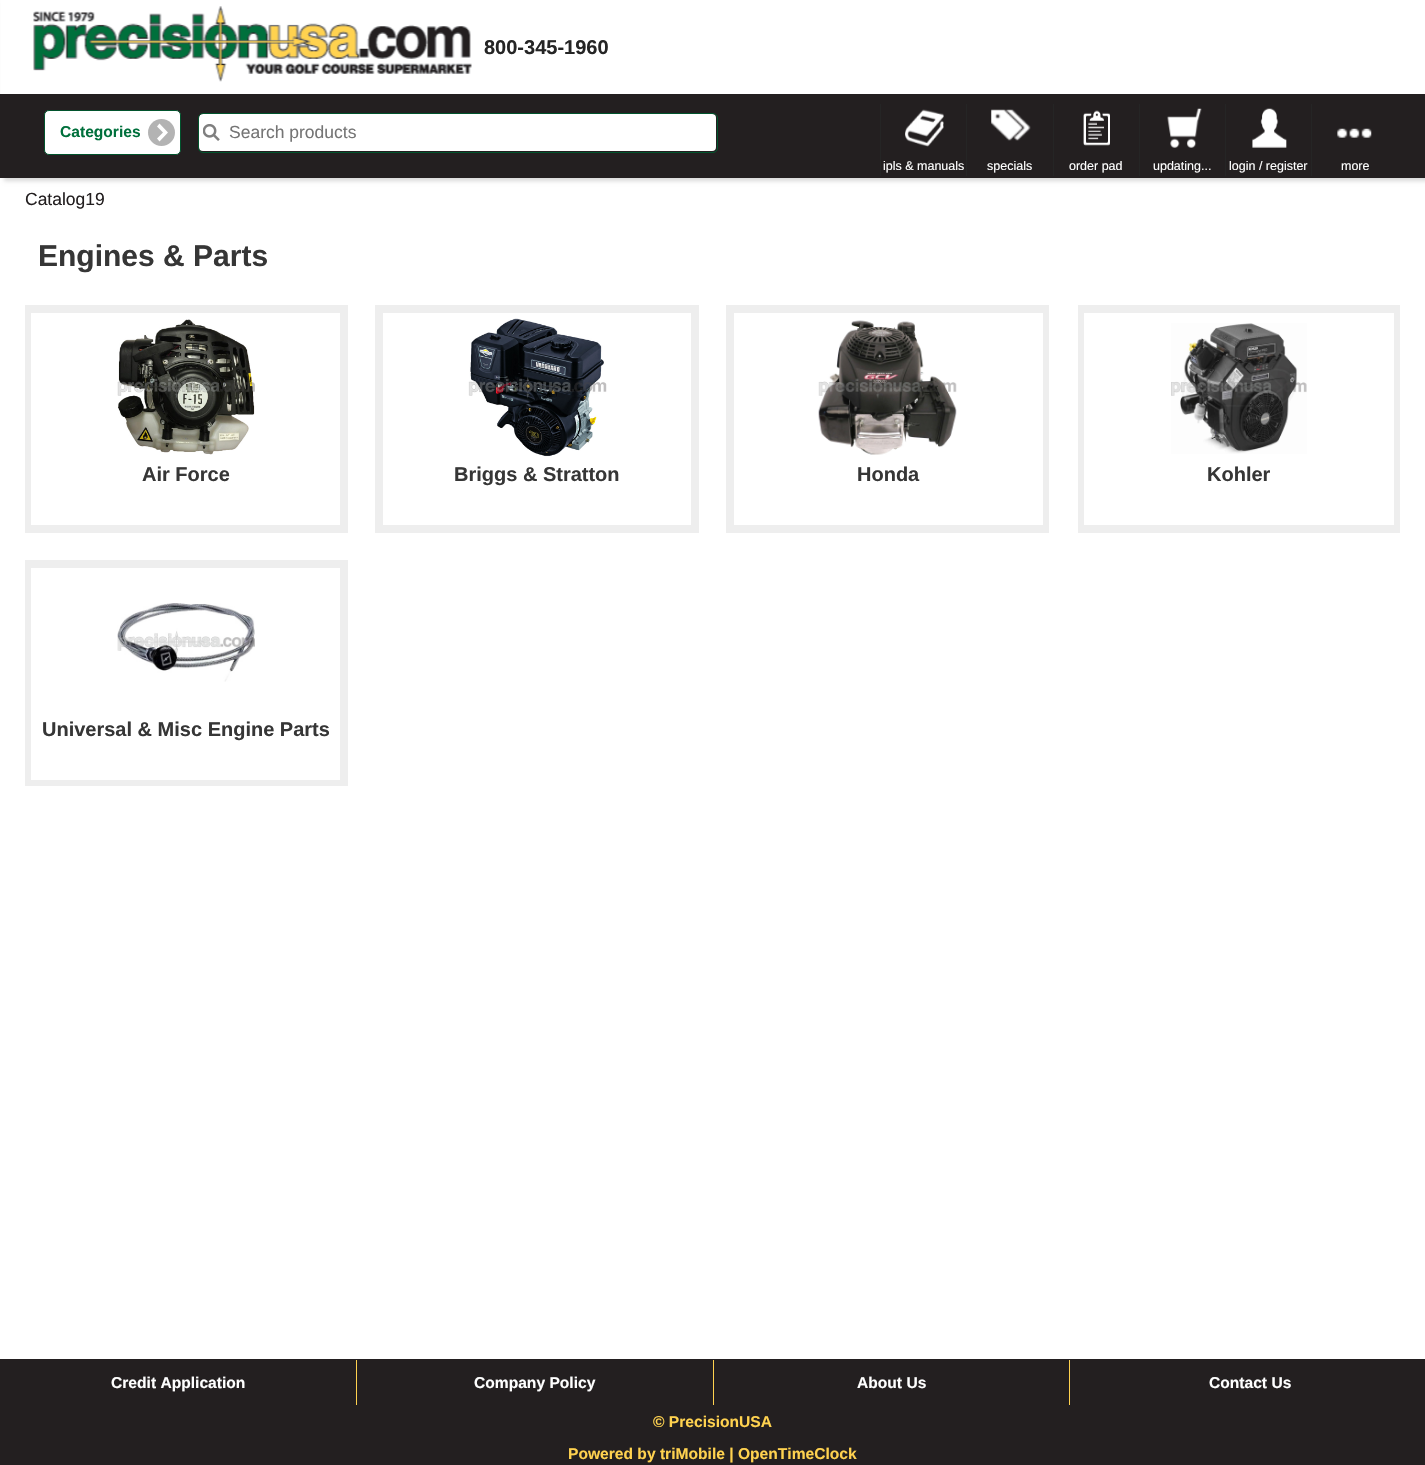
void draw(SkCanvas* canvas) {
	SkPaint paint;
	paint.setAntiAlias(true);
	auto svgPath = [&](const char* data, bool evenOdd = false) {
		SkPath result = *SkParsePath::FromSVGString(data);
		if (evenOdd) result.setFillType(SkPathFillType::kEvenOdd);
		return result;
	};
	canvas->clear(0xffffffff);
	paint.setColor(0x26000000);
	paint.setMaskFilter(SkMaskFilter::MakeBlur(kNormal_SkBlurStyle, 2));
	canvas->drawRect(SkRect::MakeXYWH(4, 3, 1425, 178), paint);
	paint.setMaskFilter(nullptr);
	paint.setColor(0xff231f20);
	canvas->drawRect(SkRect::MakeXYWH(0, 94, 1425, 84), paint);
	paint.setColor(0xffffffff);
	canvas->drawRect(SkRect::MakeXYWH(1, 0, 1424, 94), paint);
	canvas->drawImageRect(SkImages::DeferredFromEncodedData(SkData::MakeFromFileName("img1.png")), SkRect::MakeXYWH(33, 6, 439, 76), SkSamplingOptions());
	SkFont f1(fontMgr->matchFamilyStyle("Liberation Sans", SkFontStyle::Bold()), 20);
	f1.setSubpixel(true);
	paint.setColor(0xff252525);
	canvas->drawString("800-345-1960", 484, 54, f1, paint);
	paint.setColor(0xffffffff);
	canvas->drawRoundRect(SkRect::MakeXYWH(44.5, 110.5, 136, 44), 4.5, 4.5, paint);
	paint.setStroke(true);
	paint.setStrokeWidth(1);
	paint.setColor(0xff01542d);
	canvas->drawRoundRect(SkRect::MakeXYWH(44.5, 110.5, 136, 44), 4.5, 4.5, paint);
	SkFont f2(fontMgr->matchFamilyStyle("Liberation Sans", SkFontStyle::Bold()), 15.6);
	f2.setSubpixel(true);
	paint.setStroke(false);
	paint.setColor(0xff00703c);
	canvas->drawString("Categories", 60, 137, f2, paint);
	paint.setColor(0xffb3b3b3);
	canvas->drawCircle(161.5, 132.5, 13.5, paint);
	paint.setColor(0xffffffff);
	canvas->drawPath(svgPath("M157 126.5L163 132.5L157 138.5L159.5 141.5L168 132.5L159.5 123.5Z"), paint);
	canvas->drawRoundRect(SkRect::MakeXYWH(199, 114, 517, 37), 4, 4, paint);
	paint.setStroke(true);
	paint.setColor(0xff01542d);
	canvas->drawRoundRect(SkRect::MakeXYWH(198.5, 113.5, 519, 39), 4.5, 4.5, paint);
	canvas->drawImageRect(SkImages::DeferredFromEncodedData(SkData::MakeFromFileName("img2.png")), SkRect::MakeXYWH(203, 124, 17, 17), SkSamplingOptions());
	SkFont f3(fontMgr->matchFamilyStyle("Liberation Sans", SkFontStyle::Normal()), 17.5);
	f3.setSubpixel(true);
	paint.setStroke(false);
	paint.setColor(0xff757575);
	canvas->drawString("Search products", 229, 138, f3, paint);
	canvas->drawImageRect(SkImages::DeferredFromEncodedData(SkData::MakeFromFileName("img3.png")), SkRect::MakeXYWH(905, 109, 39, 38), SkSamplingOptions());
	paint.setColor(0xff252525);
	canvas->drawRect(SkRect::MakeXYWH(880, 104, 1, 72), paint);
	SkFont f4(fontMgr->matchFamilyStyle("Liberation Sans", SkFontStyle::Normal()), 12.5);
	f4.setSubpixel(true);
	paint.setColor(0xffffffff);
	canvas->drawString("ipls & manuals", 883, 170, f4, paint);
	canvas->drawImageRect(SkImages::DeferredFromEncodedData(SkData::MakeFromFileName("img4.png")), SkRect::MakeXYWH(991, 109, 40, 32), SkSamplingOptions());
	paint.setColor(0xff252525);
	canvas->drawRect(SkRect::MakeXYWH(966, 104, 1, 72), paint);
	paint.setColor(0xffffffff);
	canvas->drawString("specials", 987, 170, f4, paint);
	canvas->drawImageRect(SkImages::DeferredFromEncodedData(SkData::MakeFromFileName("img5.png")), SkRect::MakeXYWH(1083, 110, 27, 36), SkSamplingOptions());
	paint.setColor(0xff252525);
	canvas->drawRect(SkRect::MakeXYWH(1053, 104, 1, 72), paint);
	paint.setColor(0xffffffff);
	canvas->drawString("order pad", 1069, 170, f4, paint);
	canvas->drawImageRect(SkImages::DeferredFromEncodedData(SkData::MakeFromFileName("img6.png")), SkRect::MakeXYWH(1167, 108, 35, 40), SkSamplingOptions());
	paint.setColor(0xff252525);
	canvas->drawRect(SkRect::MakeXYWH(1139, 104, 1, 72), paint);
	paint.setColor(0xffffffff);
	canvas->drawString("updating...", 1153, 170, f4, paint);
	canvas->drawImageRect(SkImages::DeferredFromEncodedData(SkData::MakeFromFileName("img7.png")), SkRect::MakeXYWH(1252, 108, 35, 40), SkSamplingOptions());
	paint.setColor(0xff252525);
	canvas->drawRect(SkRect::MakeXYWH(1225, 104, 1, 72), paint);
	paint.setColor(0xffffffff);
	canvas->drawString("login / register", 1229, 170, f4, paint);
	canvas->drawImageRect(SkImages::DeferredFromEncodedData(SkData::MakeFromFileName("img8.png")), SkRect::MakeXYWH(1337, 128, 35, 10), SkSamplingOptions());
	paint.setColor(0xff252525);
	canvas->drawRect(SkRect::MakeXYWH(1311, 104, 1, 72), paint);
	paint.setColor(0xffffffff);
	canvas->drawString("more", 1341, 170, f4, paint);
	paint.setColor(0xff231f20);
	canvas->drawString("Catalog19", 25, 205, f3, paint);
	SkFont f5(fontMgr->matchFamilyStyle("Liberation Sans", SkFontStyle::Bold()), 30);
	f5.setSubpixel(true);
	paint.setColor(0xff363636);
	canvas->drawString("Engines & Parts", 38, 266, f5, paint);
	paint.setColor(0xffeeeeee);
	canvas->drawRect(SkRect::MakeXYWH(25, 305, 323, 228), paint);
	paint.setColor(0xffffffff);
	canvas->drawRect(SkRect::MakeXYWH(31, 313, 309, 212), paint);
	canvas->drawImageRect(SkImages::DeferredFromEncodedData(SkData::MakeFromFileName("img9.png")), SkRect::MakeXYWH(117, 319, 138, 136), SkSamplingOptions());
	paint.setColor(0xff363636);
	canvas->drawString("Air Force", 142, 481, f1, paint);
	paint.setColor(0xffeeeeee);
	canvas->drawRect(SkRect::MakeXYWH(375, 305, 324, 228), paint);
	paint.setColor(0xffffffff);
	canvas->drawRect(SkRect::MakeXYWH(383, 313, 308, 212), paint);
	canvas->drawImageRect(SkImages::DeferredFromEncodedData(SkData::MakeFromFileName("img10.png")), SkRect::MakeXYWH(468, 318, 139, 139), SkSamplingOptions());
	paint.setColor(0xff363636);
	canvas->drawString("Briggs & Stratton", 454, 481, f1, paint);
	paint.setColor(0xffeeeeee);
	canvas->drawRect(SkRect::MakeXYWH(726, 305, 323, 228), paint);
	paint.setColor(0xffffffff);
	canvas->drawRect(SkRect::MakeXYWH(734, 313, 309, 212), paint);
	canvas->drawImageRect(SkImages::DeferredFromEncodedData(SkData::MakeFromFileName("img11.png")), SkRect::MakeXYWH(818, 320, 139, 135), SkSamplingOptions());
	paint.setColor(0xff363636);
	canvas->drawString("Honda", 857, 481, f1, paint);
	paint.setColor(0xffeeeeee);
	canvas->drawRect(SkRect::MakeXYWH(1078, 305, 322, 228), paint);
	paint.setColor(0xffffffff);
	canvas->drawRect(SkRect::MakeXYWH(1084, 313, 310, 212), paint);
	canvas->drawImageRect(SkImages::DeferredFromEncodedData(SkData::MakeFromFileName("img12.png")), SkRect::MakeXYWH(1171, 323, 136, 131), SkSamplingOptions());
	paint.setColor(0xff363636);
	canvas->drawString("Kohler", 1207, 481, f1, paint);
	paint.setColor(0xffeeeeee);
	canvas->drawRect(SkRect::MakeXYWH(25, 560, 323, 226), paint);
	paint.setColor(0xffffffff);
	canvas->drawRect(SkRect::MakeXYWH(31, 568, 309, 212), paint);
	canvas->drawImageRect(SkImages::DeferredFromEncodedData(SkData::MakeFromFileName("img13.png")), SkRect::MakeXYWH(117, 603, 138, 79), SkSamplingOptions());
	paint.setColor(0xff363636);
	canvas->drawString("Universal & Misc Engine Parts", 42, 736, f1, paint);
	paint.setColor(0xff231f20);
	canvas->drawRect(SkRect::MakeXYWH(0, 1359, 1425, 106), paint);
	paint.setColor(0xffffffff);
	canvas->drawString("Credit Application", 111, 1388, f2, paint);
	paint.setColor(0xffffd24f);
	canvas->drawRect(SkRect::MakeXYWH(356, 1360, 1, 45), paint);
	paint.setColor(0xffffffff);
	canvas->drawString("Company Policy", 474, 1388, f2, paint);
	paint.setColor(0xffffd24f);
	canvas->drawRect(SkRect::MakeXYWH(713, 1360, 1, 45), paint);
	paint.setColor(0xffffffff);
	canvas->drawString("About Us", 857, 1388, f2, paint);
	paint.setColor(0xffffd24f);
	canvas->drawRect(SkRect::MakeXYWH(1069, 1360, 1, 45), paint);
	paint.setColor(0xffffffff);
	canvas->drawString("Contact Us", 1209, 1388, f2, paint);
	paint.setColor(0xffffd24f);
	canvas->drawString("© PrecisionUSA", 653, 1427, f2, paint);
	canvas->drawString("Powered by triMobile | OpenTimeClock", 568, 1459, f2, paint);
}
